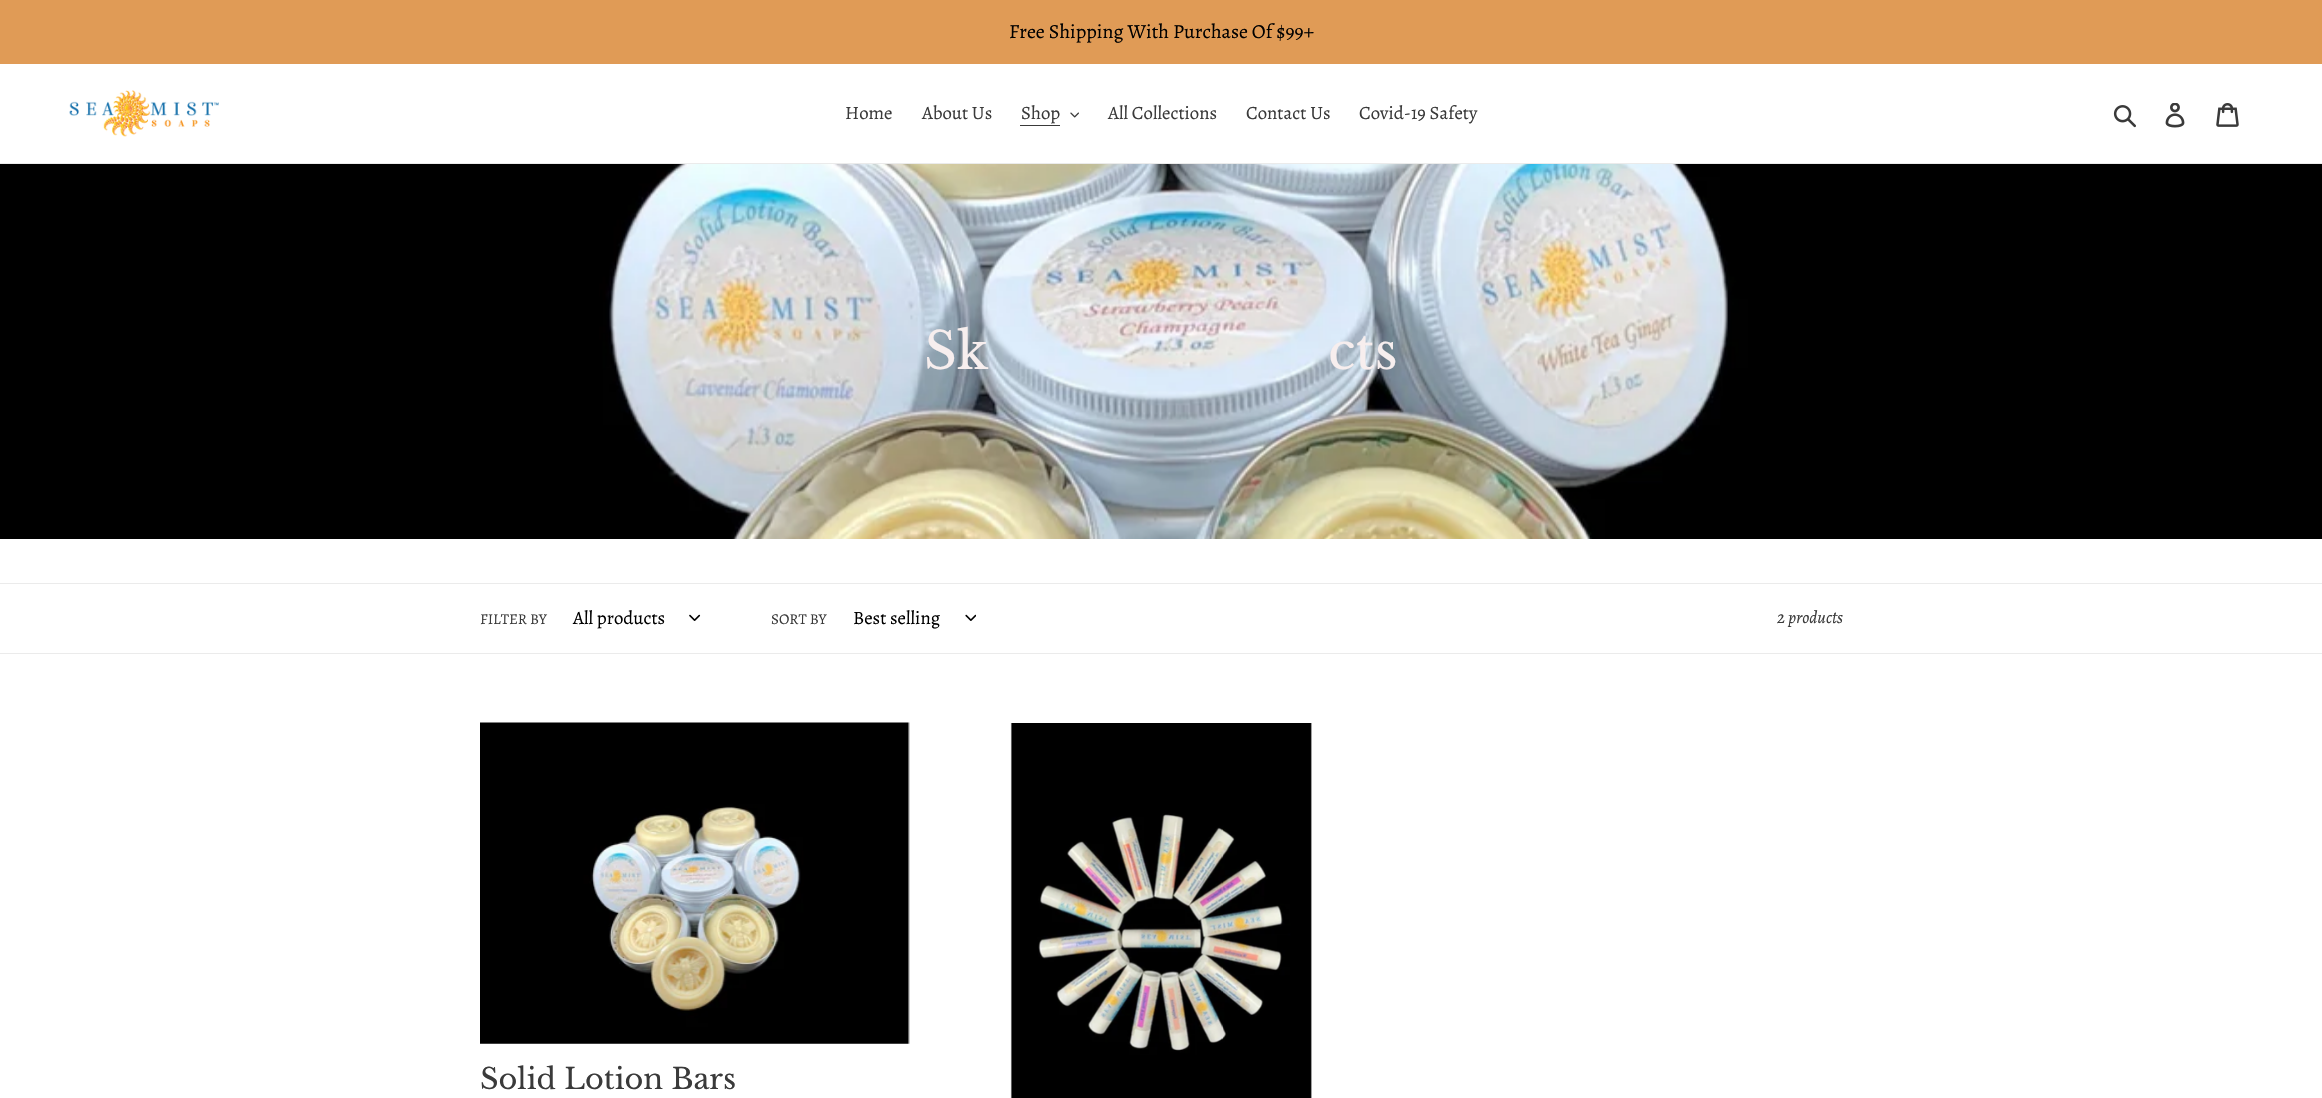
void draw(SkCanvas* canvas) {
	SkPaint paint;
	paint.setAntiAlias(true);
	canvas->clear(0xffffffff);
	paint.setColor(0xffe09b56);
	canvas->drawRect(SkRect::MakeXYWH(0, 0, 2322, 64), paint);
	SkFont f1(fontMgr->matchFamilyStyle("Alegreya", SkFontStyle::Normal()), 20);
	f1.setSubpixel(true);
	paint.setColor(0xff000000);
	canvas->drawString("Free Shipping With Purchase Of $99+", 1009, 38, f1, paint);
	paint.setColor(0xffebebeb);
	canvas->drawRect(SkRect::MakeXYWH(0, 163, 2322, 1), paint);
	canvas->drawImageRect(SkImages::DeferredFromEncodedData(SkData::MakeFromFileName("img1.png")), SkRect::MakeXYWH(69, 90, 150, 47), SkSamplingOptions());
	SkFont f2(fontMgr->matchFamilyStyle("Alegreya", SkFontStyle::Normal()), 18.75);
	f2.setSubpixel(true);
	paint.setColor(0xff3a3a3a);
	canvas->drawString("Home", 845, 119, f2, paint);
	canvas->drawString("About Us", 922, 119, f2, paint);
	canvas->drawString("Shop", 1021, 119, f2, paint);
	canvas->drawRect(SkRect::MakeXYWH(1020, 125, 40, 1), paint);
	canvas->drawImageRect(SkImages::DeferredFromEncodedData(SkData::MakeFromFileName("img2.png")), SkRect::MakeXYWH(1070, 112, 9, 6), SkSamplingOptions());
	canvas->drawString("All Collections", 1108, 119, f2, paint);
	canvas->drawString("Contact Us", 1246, 119, f2, paint);
	canvas->drawString("Covid-19 Safety", 1359, 119, f2, paint);
	canvas->drawImageRect(SkImages::DeferredFromEncodedData(SkData::MakeFromFileName("img3.png")), SkRect::MakeXYWH(2113, 105, 23, 23), SkSamplingOptions());
	canvas->drawImageRect(SkImages::DeferredFromEncodedData(SkData::MakeFromFileName("img4.png")), SkRect::MakeXYWH(2165, 103, 20, 25), SkSamplingOptions());
	canvas->drawImageRect(SkImages::DeferredFromEncodedData(SkData::MakeFromFileName("img5.png")), SkRect::MakeXYWH(2216, 103, 23, 24), SkSamplingOptions());
	canvas->drawImageRect(SkImages::DeferredFromEncodedData(SkData::MakeFromFileName("img6.png")), SkRect::MakeXYWH(0, 164, 2322, 375), SkSamplingOptions());
	SkFont f3(fontMgr->matchFamilyStyle("Libre Baskerville", SkFontStyle::Normal()), 51);
	f3.setSubpixel(true);
	paint.setColor(0xfff7eeee);
	canvas->drawString("Sk", 924, 369, f3, paint);
	canvas->drawString("cts", 1328, 369, f3, paint);
	paint.setColor(0xffebebeb);
	canvas->drawRect(SkRect::MakeXYWH(0, 583, 2322, 1), paint);
	canvas->drawRect(SkRect::MakeXYWH(0, 653, 2322, 1), paint);
	SkFont f4(fontMgr->matchFamilyStyle("Alegreya", SkFontStyle::Normal()), 15);
	f4.setSubpixel(true);
	paint.setColor(0xff3a3a3a);
	canvas->drawString("FILTER BY", 480, 624, f4, paint);
	paint.setColor(0xff000000);
	canvas->drawString("All products", 573, 624, f2, paint);
	canvas->drawImageRect(SkImages::DeferredFromEncodedData(SkData::MakeFromFileName("img7.png")), SkRect::MakeXYWH(689, 614, 12, 7), SkSamplingOptions());
	paint.setColor(0xff3a3a3a);
	canvas->drawString("SORT BY", 771, 624, f4, paint);
	paint.setColor(0xff000000);
	canvas->drawString("Best selling", 853, 624, f2, paint);
	canvas->drawImageRect(SkImages::DeferredFromEncodedData(SkData::MakeFromFileName("img8.png")), SkRect::MakeXYWH(965, 614, 11, 7), SkSamplingOptions());
	SkFont f5(fontMgr->matchFamilyStyle("Alegreya", SkFontStyle::Italic()), 17.5);
	f5.setSubpixel(true);
	paint.setColor(0xff3a3a3a);
	canvas->drawString("2 products", 1777, 623, f5, paint);
	canvas->drawImageRect(SkImages::DeferredFromEncodedData(SkData::MakeFromFileName("img9.png")), SkRect::MakeXYWH(480, 722, 430, 322), SkSamplingOptions());
	SkFont f6(fontMgr->matchFamilyStyle("Libre Baskerville", SkFontStyle::Normal()), 28.75);
	f6.setSubpixel(true);
	canvas->drawString("Solid Lotion Bars", 480, 1089, f6, paint);
	canvas->drawImageRect(SkImages::DeferredFromEncodedData(SkData::MakeFromFileName("img10.png")), SkRect::MakeXYWH(1010, 723, 302, 375), SkSamplingOptions());
}
